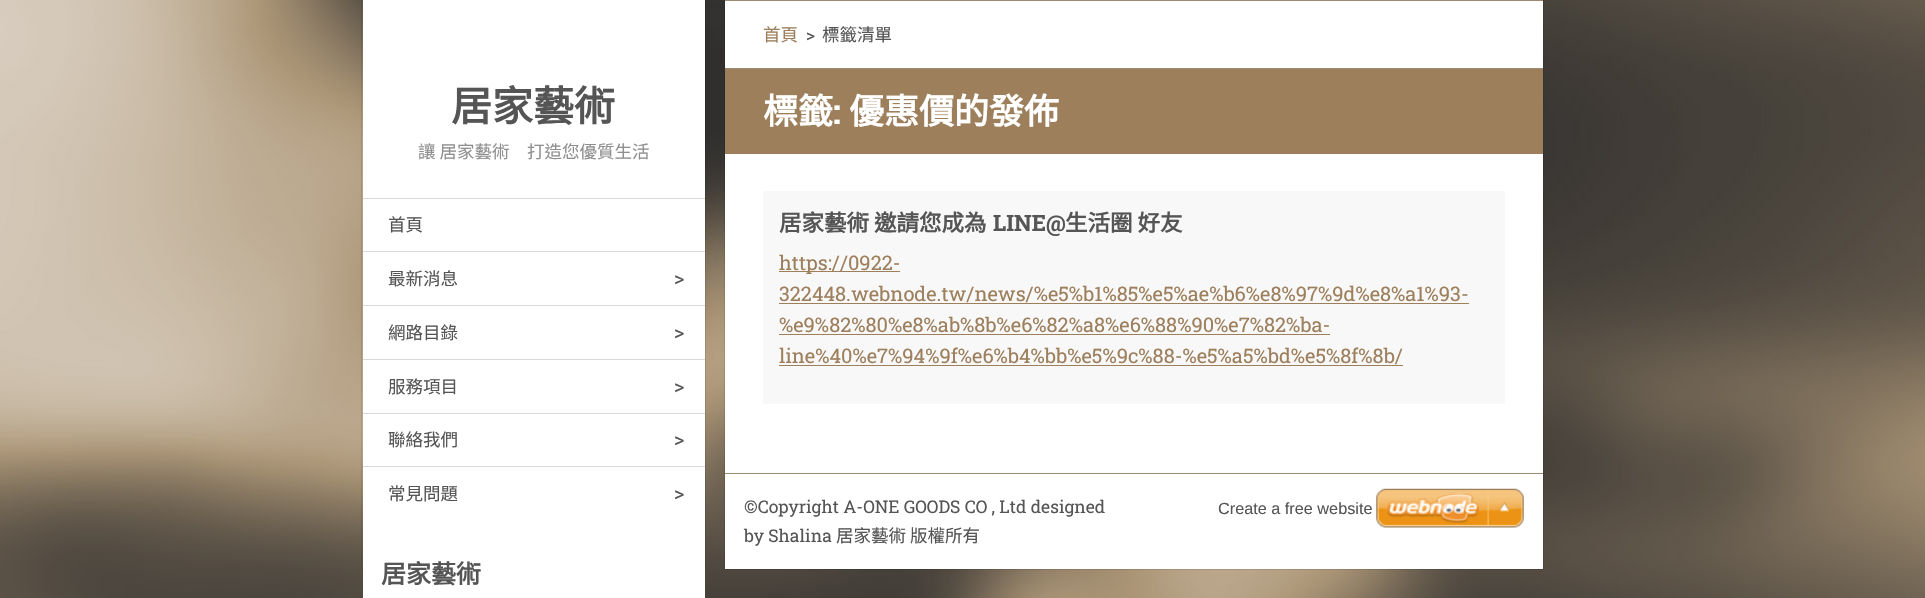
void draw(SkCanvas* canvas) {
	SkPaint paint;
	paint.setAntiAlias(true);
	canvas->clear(0xffffffff);
	canvas->drawImageRect(SkImages::DeferredFromEncodedData(SkData::MakeFromFileName("img1.png")), SkRect::MakeXYWH(0, 0, 1925, 598), SkSamplingOptions());
	paint.setColor(0xffffffff);
	canvas->drawRect(SkRect::MakeXYWH(363, 0, 342, 539), paint);
	paint.setStroke(true);
	paint.setStrokeWidth(1);
	paint.setColor(0x1a000000);
	canvas->drawRect(SkRect::MakeXYWH(361.5, -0.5, 344, 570), paint);
	SkFont f1(fontMgr->matchFamilyStyle("Noto Sans CJK TC", SkFontStyle::Bold()), 41);
	f1.setSubpixel(true);
	paint.setStroke(false);
	paint.setColor(0xff555555);
	canvas->drawString("居家藝術", 451, 121, f1, paint);
	SkFont f2(fontMgr->matchFamilyStyle("Noto Sans CJK TC", SkFontStyle::Normal()), 17.5);
	f2.setSubpixel(true);
	paint.setColor(0xff8f8f8f);
	canvas->drawString("讓 居家藝術　打造您優質生活", 418, 158, f2, paint);
	paint.setColor(0xffd9d9d9);
	canvas->drawRect(SkRect::MakeXYWH(363, 198, 342, 1), paint);
	paint.setColor(0xff555555);
	canvas->drawString("首頁", 388, 231, f2, paint);
	paint.setColor(0xffd9d9d9);
	canvas->drawRect(SkRect::MakeXYWH(363, 251, 342, 1), paint);
	paint.setColor(0xff555555);
	canvas->drawString("最新消息", 388, 285, f2, paint);
	SkFont f3(fontMgr->matchFamilyStyle("Roboto Slab", SkFontStyle::Normal()), 20);
	f3.setSubpixel(true);
	canvas->drawString(">", 674, 285, f3, paint);
	paint.setColor(0xffd9d9d9);
	canvas->drawRect(SkRect::MakeXYWH(363, 305, 342, 1), paint);
	paint.setColor(0xff555555);
	canvas->drawString("網路目錄", 388, 339, f2, paint);
	canvas->drawString(">", 674, 339, f3, paint);
	paint.setColor(0xffd9d9d9);
	canvas->drawRect(SkRect::MakeXYWH(363, 359, 342, 1), paint);
	paint.setColor(0xff555555);
	canvas->drawString("服務項目", 388, 393, f2, paint);
	canvas->drawString(">", 674, 393, f3, paint);
	paint.setColor(0xffd9d9d9);
	canvas->drawRect(SkRect::MakeXYWH(363, 413, 342, 1), paint);
	paint.setColor(0xff555555);
	canvas->drawString("聯絡我們", 388, 446, f2, paint);
	canvas->drawString(">", 674, 446, f3, paint);
	paint.setColor(0xffd9d9d9);
	canvas->drawRect(SkRect::MakeXYWH(363, 466, 342, 1), paint);
	paint.setColor(0xff555555);
	canvas->drawString("常見問題", 388, 500, f2, paint);
	canvas->drawString(">", 674, 500, f3, paint);
	paint.setColor(0xffffffff);
	canvas->drawRect(SkRect::MakeXYWH(363, 539, 342, 59), paint);
	SkFont f4(fontMgr->matchFamilyStyle("Noto Sans CJK TC", SkFontStyle::Bold()), 25);
	f4.setSubpixel(true);
	paint.setColor(0xff555555);
	canvas->drawString("居家藝術", 381, 583, f4, paint);
	paint.setColor(0xffffffff);
	canvas->drawRect(SkRect::MakeXYWH(725, 1, 818, 67), paint);
	paint.setColor(0xff9d8b71);
	canvas->drawRect(SkRect::MakeXYWH(725, 0, 818, 1), paint);
	canvas->drawRect(SkRect::MakeXYWH(725, 68, 818, 1), paint);
	paint.setColor(0xff9d7f5c);
	canvas->drawRect(SkRect::MakeXYWH(725, 69, 818, 85), paint);
	paint.setColor(0xffffffff);
	canvas->drawRect(SkRect::MakeXYWH(725, 154, 818, 281), paint);
	paint.setStroke(true);
	paint.setColor(0x1a000000);
	canvas->drawRect(SkRect::MakeXYWH(724.5, -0.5, 819, 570), paint);
	paint.setStroke(false);
	paint.setColor(0xff9d7f5c);
	canvas->drawString("首頁", 763, 41, f2, paint);
	SkFont f5(fontMgr->matchFamilyStyle("Roboto Slab", SkFontStyle::Normal()), 17.5);
	f5.setSubpixel(true);
	paint.setColor(0xff555555);
	canvas->drawString(">", 806, 41, f5, paint);
	canvas->drawString("標籤清單", 822, 41, f2, paint);
	SkFont f6(fontMgr->matchFamilyStyle("Noto Sans CJK TC", SkFontStyle::Bold()), 35);
	f6.setSubpixel(true);
	paint.setColor(0xffffffff);
	canvas->drawString("標籤", 763, 124, f6, paint);
	SkFont f7(fontMgr->matchFamilyStyle("Roboto Slab", SkFontStyle::Bold()), 35);
	f7.setSubpixel(true);
	canvas->drawString(":", 833, 124, f7, paint);
	canvas->drawString("優惠價的發佈", 849, 124, f6, paint);
	paint.setColor(0xfff8f8f8);
	canvas->drawRect(SkRect::MakeXYWH(763, 191, 742, 213), paint);
	SkFont f8(fontMgr->matchFamilyStyle("Noto Sans CJK TC", SkFontStyle::Bold()), 22.5);
	f8.setSubpixel(true);
	paint.setColor(0xff555555);
	canvas->drawString("居家藝術", 779, 231, f8, paint);
	canvas->drawString("邀請您成為", 874, 231, f8, paint);
	SkFont f9(fontMgr->matchFamilyStyle("Roboto Slab", SkFontStyle::Bold()), 22.5);
	f9.setSubpixel(true);
	canvas->drawString("LINE@", 993, 231, f9, paint);
	canvas->drawString("生活圈 好友", 1065, 231, f8, paint);
	paint.setColor(0xff9d7f5c);
	canvas->drawRect(SkRect::MakeXYWH(779, 271, 121, 1), paint);
	canvas->drawString("https://0922-", 779, 270, f3, paint);
	canvas->drawString("322448.webnode.tw/news/%e5%b1%85%e5%ae%b6%e8%97%9d%e8%a1%93-", 779, 301, f3, paint);
	canvas->drawRect(SkRect::MakeXYWH(779, 303, 690, 1), paint);
	canvas->drawString("%e9%82%80%e8%ab%8b%e6%82%a8%e6%88%90%e7%82%ba-", 779, 332, f3, paint);
	canvas->drawRect(SkRect::MakeXYWH(779, 334, 551, 1), paint);
	canvas->drawString("line%40%e7%94%9f%e6%b4%bb%e5%9c%88-%e5%a5%bd%e5%8f%8b/", 779, 363, f3, paint);
	canvas->drawRect(SkRect::MakeXYWH(779, 365, 624, 1), paint);
	paint.setColor(0xffffffff);
	canvas->drawRect(SkRect::MakeXYWH(725, 435, 818, 38), paint);
	canvas->drawRect(SkRect::MakeXYWH(725, 474, 818, 95), paint);
	paint.setColor(0xff9d8b71);
	canvas->drawRect(SkRect::MakeXYWH(725, 473, 818, 1), paint);
	paint.setColor(0xff555555);
	canvas->drawString("©Copyright A-ONE GOODS CO , Ltd designed", 744, 513, f5, paint);
	canvas->drawString("by Shalina", 744, 542, f5, paint);
	canvas->drawString("居家藝術", 836, 542, f2, paint);
	canvas->drawString("版權所有", 910, 542, f2, paint);
	SkFont f10(fontMgr->matchFamilyStyle("Liberation Sans", SkFontStyle::Normal()), 16.25);
	f10.setSubpixel(true);
	canvas->drawString("Create a free website", 1218, 514, f10, paint);
	canvas->drawImageRect(SkImages::DeferredFromEncodedData(SkData::MakeFromFileName("img2.png")), SkRect::MakeXYWH(1376, 488, 148, 40), SkSamplingOptions());
}
